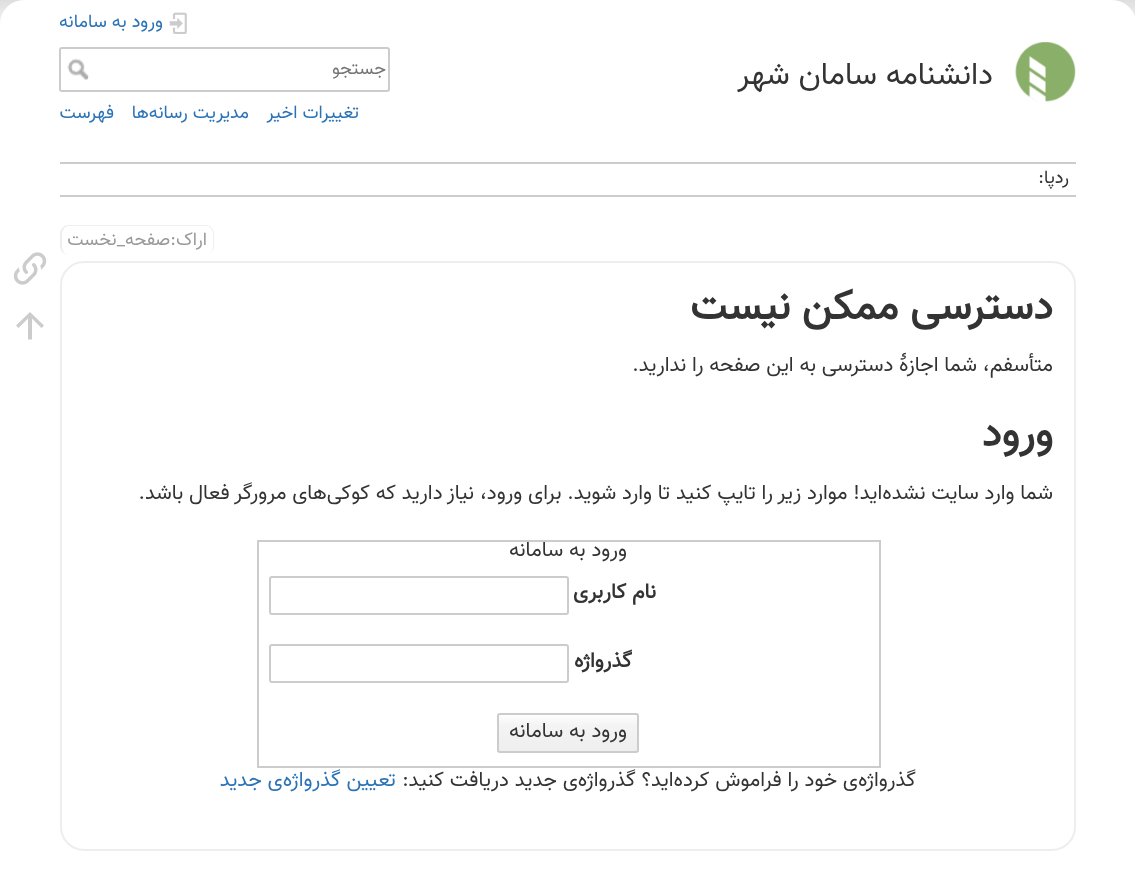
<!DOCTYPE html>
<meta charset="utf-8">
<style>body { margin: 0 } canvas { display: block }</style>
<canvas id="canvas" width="1135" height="875"></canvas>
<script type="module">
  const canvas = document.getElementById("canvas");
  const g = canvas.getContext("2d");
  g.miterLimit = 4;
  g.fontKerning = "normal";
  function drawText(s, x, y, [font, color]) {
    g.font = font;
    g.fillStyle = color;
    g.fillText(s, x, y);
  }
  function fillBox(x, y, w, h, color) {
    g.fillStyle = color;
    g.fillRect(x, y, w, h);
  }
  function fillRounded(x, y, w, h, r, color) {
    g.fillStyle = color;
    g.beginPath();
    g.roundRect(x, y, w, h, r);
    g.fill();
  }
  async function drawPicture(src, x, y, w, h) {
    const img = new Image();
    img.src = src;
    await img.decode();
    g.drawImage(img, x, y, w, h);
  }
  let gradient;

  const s1 = ["31.5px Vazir", "#333333"];
  const s2 = ["18.5px Vazir", "#2B73B7"];
  const s3 = ["18.5px Vazir", "#757575"];
  const s4 = ["18.5px Vazir", "#333333"];
  const s5 = ["18.5px Vazir", "#999999"];
  const s6 = ["bold 42px Vazir", "#333333"];
  const s7 = ["21px Vazir", "#333333"];
  const s8 = ["bold 21px Vazir", "#333333"];
  const s9 = ["21px Vazir", "#2B73B7"];

  fillBox(0, 0, 1135, 875, "#FBFAF9");
  await drawPicture("pic1.png", 0, 0, 1135, 24);
  fillRounded(0, 0, 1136, 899, 24, "#FFFFFF");
  await drawPicture("pic2.png", 1015, 42, 61, 60);
  g.direction = "rtl";
  drawText("دانشنامه سامان شهر", 993, 84, s1);
  await drawPicture("pic3.png", 169, 12, 18, 22);
  drawText("ورود به سامانه", 163, 27, s2);
  g.beginPath();
  g.roundRect(60, 48, 329, 43, 2);
  g.strokeStyle = "#CCCCCC";
  g.lineWidth = 2;
  g.stroke();
  drawText("جستجو", 386, 74, s3);
  await drawPicture("pic4.png", 67, 58, 22, 22);
  drawText("تغییرات اخیر", 359, 118, s2);
  drawText("مدیریت رسانه‌ها", 249, 118, s2);
  drawText("فهرست", 114, 118, s2);
  fillBox(60, 162, 1016, 2, "#CCCCCC");
  fillBox(60, 195, 1016, 2, "#CCCCCC");
  drawText("ردپا:", 1069, 183, s4);
  g.fillStyle = "#EEEEEE";
  g.beginPath();
  g.moveTo(69, 225);
  g.lineTo(206, 225);
  g.bezierCurveTo(210, 225, 214, 229, 214, 234);
  g.lineTo(214, 246);
  g.bezierCurveTo(214, 251, 210, 255, 206, 255);
  g.lineTo(69, 255);
  g.bezierCurveTo(64, 255, 60, 251, 60, 246);
  g.lineTo(60, 234);
  g.bezierCurveTo(60, 229, 64, 225, 69, 225);
  g.closePath();
  g.moveTo(69, 226);
  g.lineTo(206, 226);
  g.bezierCurveTo(210, 226, 213, 230, 213, 234);
  g.lineTo(213, 246);
  g.bezierCurveTo(213, 251, 210, 255, 206, 255);
  g.lineTo(69, 255);
  g.bezierCurveTo(65, 255, 62, 251, 62, 246);
  g.lineTo(62, 234);
  g.bezierCurveTo(62, 230, 65, 226, 69, 226);
  g.closePath();
  g.fill("evenodd");
  drawText("اراک:صفحه_نخست", 207, 245, s5);
  g.beginPath();
  g.roundRect(61, 262, 1014, 588, 23);
  g.strokeStyle = "#EEEEEE";
  g.stroke();
  drawText("دسترسی ممکن نیست", 1053, 319, s6);
  drawText("متأسفم، شما اجازهٔ دسترسی به این صفحه را ندارید.", 1053, 371, s7);
  drawText("ورود", 1053, 446, s6);
  drawText("شما وارد سایت نشده‌اید! موارد زیر را تایپ کنید تا وارد شوید. برای ورود، نیاز دارید که کوکی‌های مرورگر فعال باشد.", 1053, 499, s7);
  g.strokeStyle = "#CCCCCC";
  g.strokeRect(258, 541, 622, 226);
  drawText("ورود به سامانه", 627, 556, s7);
  drawText("نام کاربری", 656, 598, s8);
  g.beginPath();
  g.roundRect(270, 577, 298, 37, 2);
  g.stroke();
  drawText("گذرواژه‌", 632, 667, s8);
  g.beginPath();
  g.roundRect(270, 645, 298, 37, 2);
  g.stroke();
  g.save();
  g.beginPath();
  g.roundRect(497, 713, 142, 40, 3);
  g.clip();
  gradient = g.createLinearGradient(568, 714, 568, 752);
  gradient.addColorStop(0, "#FFFFFF");
  gradient.addColorStop(0.3, "#F4F4F4");
  gradient.addColorStop(0.99, "#EEEEEE");
  gradient.addColorStop(0.99, "#CCCCCC");
  g.fillStyle = gradient;
  g.fillRect(497, 714, 142, 38);
  g.restore();
  g.beginPath();
  g.roundRect(498, 714, 140, 38, 2);
  g.stroke();
  drawText("ورود به سامانه", 627, 737, s7);
  drawText("گذرواژه‌ی خود را فراموش کرده‌اید؟ گذرواژه‌ی جدید دریافت کنید:", 916, 786, s7);
  drawText("تعیین گذرواژه‌ی جدید", 396, 786, s9);
  await drawPicture("pic5.png", 13, 252, 34, 33);
  g.fillStyle = "#CCCCCC";
  g.beginPath();
  g.moveTo(32, 339.5);
  g.lineTo(28, 339.5);
  g.lineTo(28, 318.5);
  g.lineTo(18.5, 328);
  g.lineTo(16, 325.5);
  g.lineTo(30, 312);
  g.lineTo(44, 325.5);
  g.lineTo(41.5, 328);
  g.lineTo(32, 318.5);
  g.closePath();
  g.fill();
</script>
